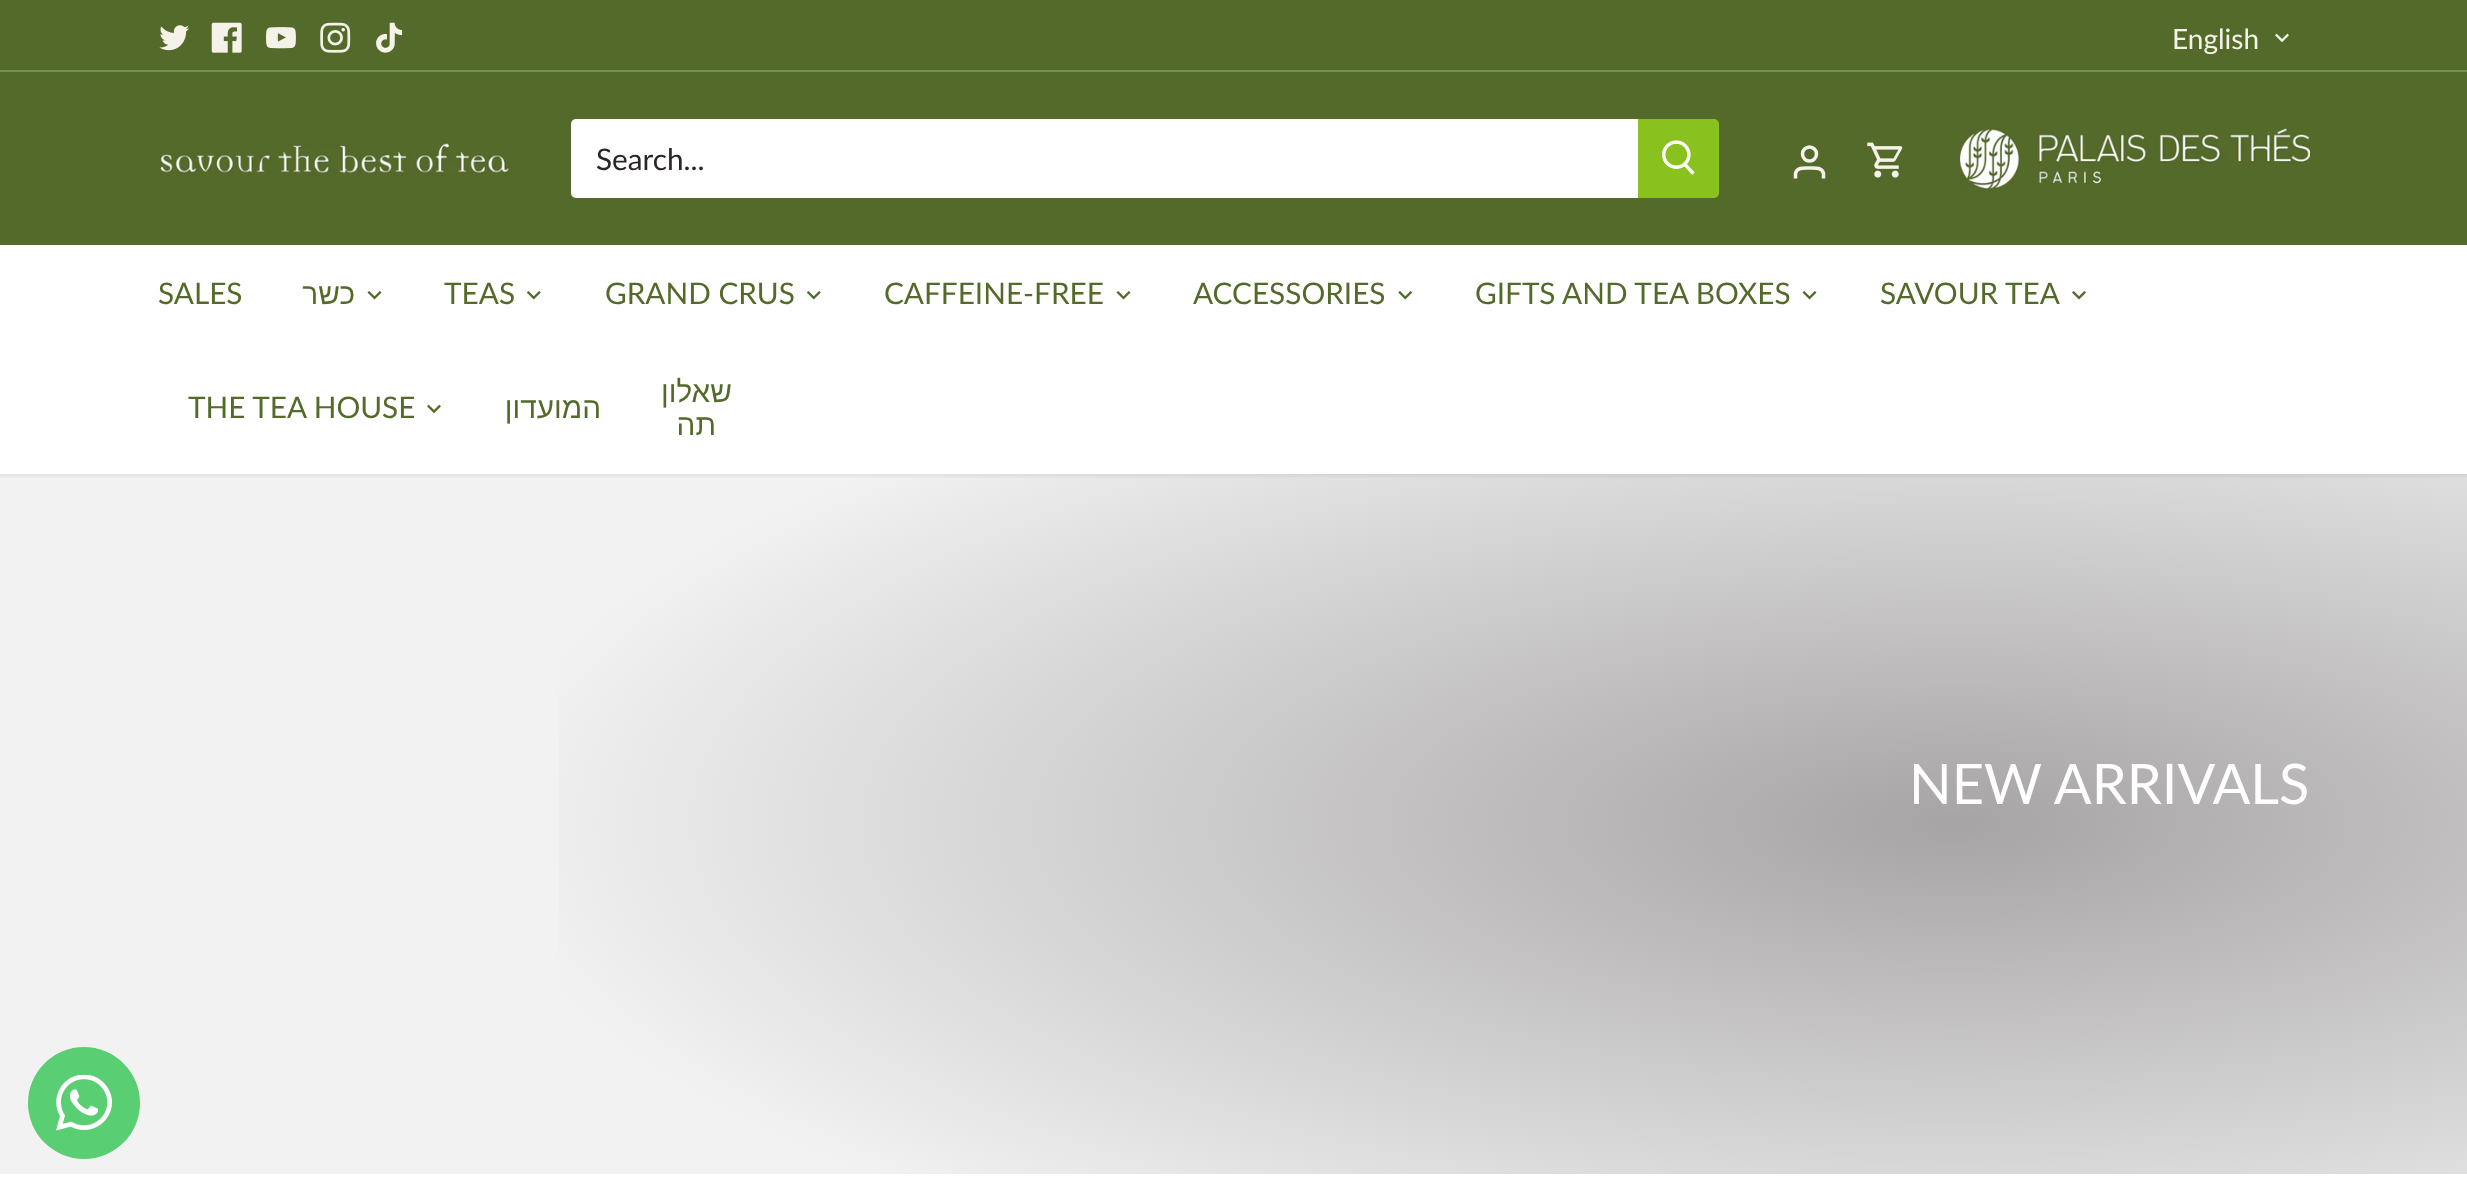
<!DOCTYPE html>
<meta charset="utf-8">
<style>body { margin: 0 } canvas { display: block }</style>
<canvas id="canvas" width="2467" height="1186"></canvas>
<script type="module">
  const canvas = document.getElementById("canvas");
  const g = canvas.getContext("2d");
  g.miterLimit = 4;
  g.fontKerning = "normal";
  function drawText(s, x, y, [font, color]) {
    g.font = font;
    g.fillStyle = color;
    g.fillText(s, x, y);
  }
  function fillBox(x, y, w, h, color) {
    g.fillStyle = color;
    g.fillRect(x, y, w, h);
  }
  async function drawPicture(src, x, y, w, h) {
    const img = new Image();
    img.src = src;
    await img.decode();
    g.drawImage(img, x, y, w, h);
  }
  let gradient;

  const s1 = ["28px Lato", "#F4F2E9"];
  const s2 = ["29.75px Lato", "#2C2528"];
  const s3 = ["29.75px Lato", "#546A2A"];
  const s4 = ["29.75px Liberation Sans", "#546A2A"];
  const s5 = ["56px Lato", "#FFFFFF"];

  fillBox(0, 0, 2467, 1186, "#FFFFFF");
  g.save();
  g.beginPath();
  g.rect(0, 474, 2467, 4);
  g.clip();
  g.fillStyle = "rgba(0, 0, 0, 0.08)";
  g.filter = "blur(2.5px)";
  g.beginPath();
  g.rect(-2, 70, 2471, 406);
  g.fill();
  g.filter = "none";
  g.restore();
  fillBox(0, 0, 2467, 70, "#546A2A");
  fillBox(0, 70, 2467, 2, "#7C8C5A");
  await drawPicture("pic1.png", 159, 25, 30, 26);
  await drawPicture("pic2.png", 211, 22, 31, 31);
  await drawPicture("pic3.png", 266, 27, 30, 22);
  await drawPicture("pic4.png", 320, 22, 31, 31);
  await drawPicture("pic5.png", 376, 22, 27, 31);
  drawText("English", 2172, 49, s1);
  await drawPicture("pic6.png", 2275, 33, 14, 10);
  fillBox(0, 72, 2467, 173, "#546A2A");
  await drawPicture("pic7.png", 159, 142, 351, 35);
  g.fillStyle = "#FFFFFF";
  g.beginPath();
  g.roundRect(571, 119, 1069, 79, [5, 0, 0, 5]);
  g.fill();
  drawText("Search...", 596, 170, s2);
  g.fillStyle = "#89C21E";
  g.beginPath();
  g.roundRect(1638, 119, 81, 79, [0, 5, 5, 0]);
  g.fill();
  await drawPicture("pic8.png", 1662, 140, 33, 35);
  g.beginPath();
  g.arc(1809.5, 154, 7, 0, Math.PI * 2);
  g.strokeStyle = "#F4F2E9";
  g.lineWidth = 3.5;
  g.stroke();
  g.beginPath();
  g.moveTo(1823.5, 178.5);
  g.lineTo(1823.5, 173.5);
  g.bezierCurveTo(1822, 167, 1814.5, 168, 1809.5, 168);
  g.bezierCurveTo(1804.5, 168, 1797, 167, 1795.5, 173.5);
  g.lineTo(1795.5, 178.5);
  g.stroke();
  await drawPicture("pic9.png", 1867, 142, 36, 36);
  await drawPicture("pic10.png", 1960, 127, 350, 63);
  drawText("SALES", 158, 304, s3);
  g.direction = "rtl";
  drawText("כשר", 355, 304, s4);
  await drawPicture("pic11.png", 367, 291, 15, 9);
  g.direction = "ltr";
  drawText("TEAS", 444, 304, s3);
  await drawPicture("pic12.png", 526, 291, 15, 9);
  drawText("GRAND CRUS", 605, 304, s3);
  await drawPicture("pic12.png", 806, 291, 15, 9);
  drawText("CAFFEINE-FREE", 884, 304, s3);
  await drawPicture("pic11.png", 1116, 291, 15, 9);
  drawText("ACCESSORIES", 1193, 304, s3);
  await drawPicture("pic13.png", 1398, 291, 15, 9);
  drawText("GIFTS AND TEA BOXES", 1475, 304, s3);
  await drawPicture("pic11.png", 1802, 291, 15, 9);
  drawText("SAVOUR TEA", 1880, 304, s3);
  await drawPicture("pic14.png", 2072, 291, 14, 9);
  drawText("THE TEA HOUSE", 188, 418, s3);
  await drawPicture("pic15.png", 427, 404, 14, 10);
  g.direction = "rtl";
  drawText("המועדון", 601, 418, s4);
  drawText("שאלון", 732, 402, s4);
  drawText("תה", 716, 435, s4);
  fillBox(0, 474, 2467, 700, "rgba(0, 0, 0, 0.05)");
  gradient = g.createRadialGradient(1956, 2345.11, 0, 1956, 2345.11, 2120);
  gradient.addColorStop(0, "rgba(44, 37, 40, 0.38)");
  gradient.addColorStop(0.7, "rgba(44, 37, 40, 0)");
  g.fillStyle = gradient;
  g.beginPath();
  g.rect(559, 474, 1908, 700);
  g.save();
  g.clip();
  g.scale(1, 744 / 2120);
  g.fillRect(0, 0, 2467, 3380);
  g.restore();
  g.direction = "ltr";
  drawText("NEW ARRIVALS", 1909, 804, s5);
  g.fillStyle = "#59CE72";
  g.beginPath();
  g.arc(84, 1103, 56, 0, Math.PI * 2);
  g.fill();
  await drawPicture("pic16.png", 56, 1075, 56, 56);
</script>
